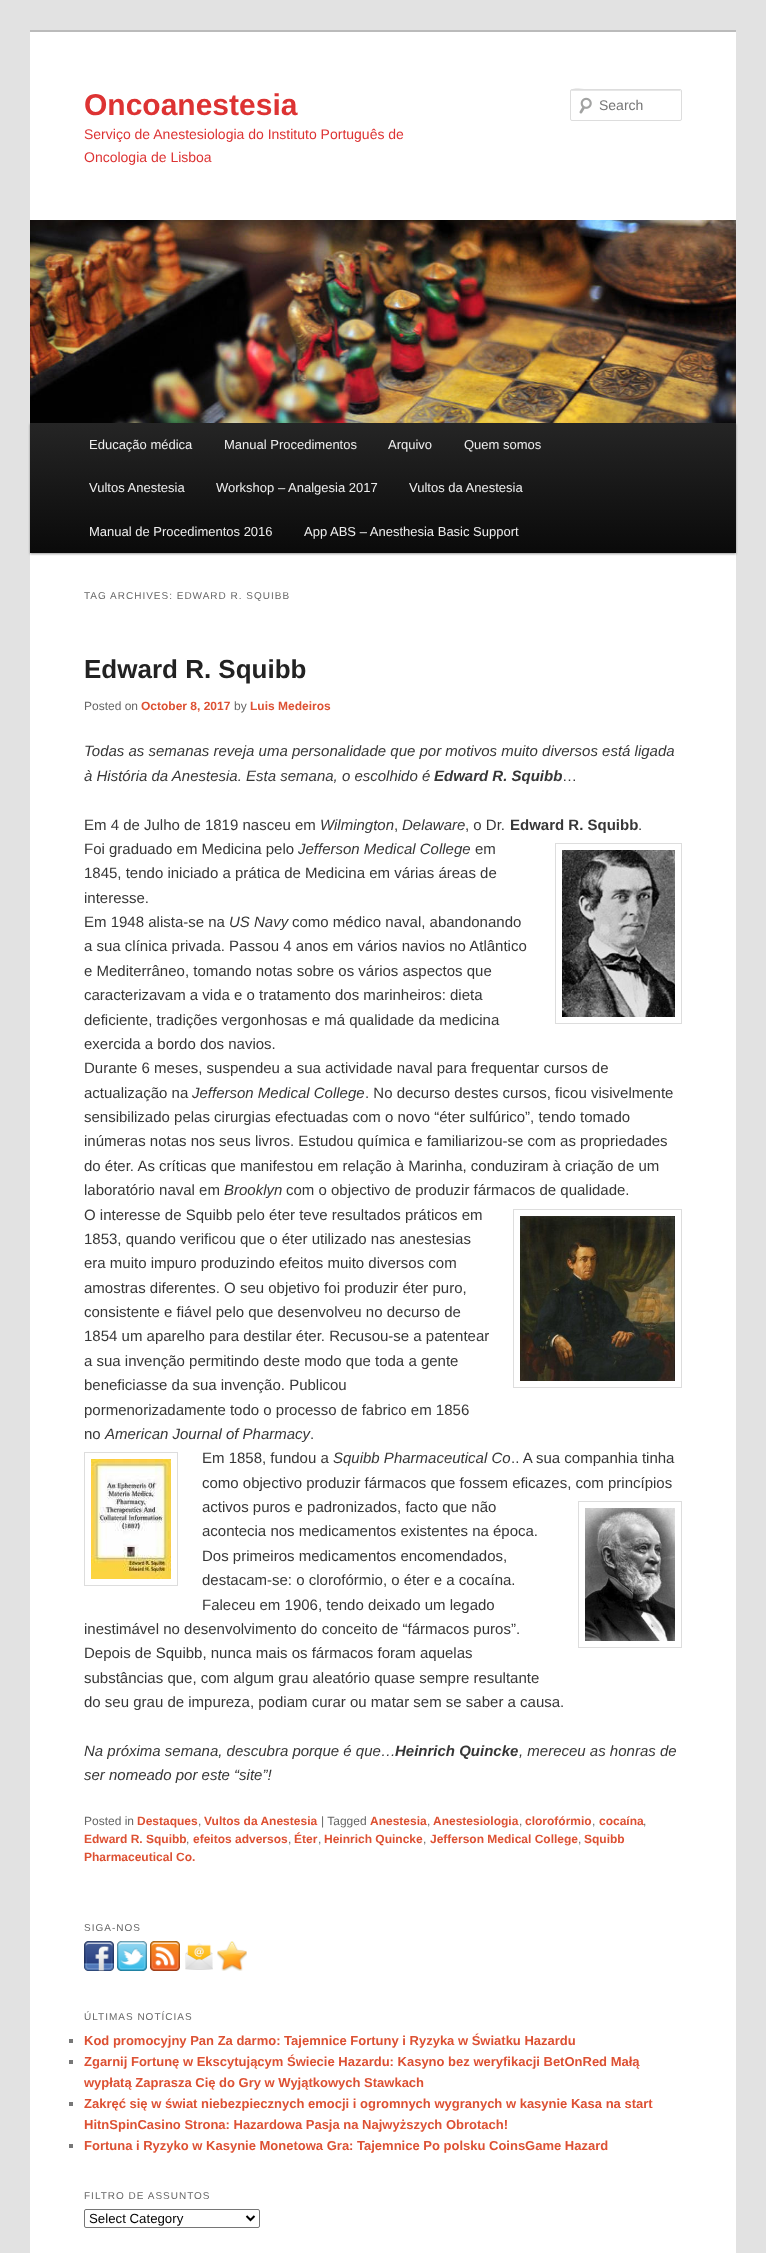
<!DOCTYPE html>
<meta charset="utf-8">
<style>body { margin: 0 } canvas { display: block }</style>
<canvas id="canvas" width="766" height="2253"></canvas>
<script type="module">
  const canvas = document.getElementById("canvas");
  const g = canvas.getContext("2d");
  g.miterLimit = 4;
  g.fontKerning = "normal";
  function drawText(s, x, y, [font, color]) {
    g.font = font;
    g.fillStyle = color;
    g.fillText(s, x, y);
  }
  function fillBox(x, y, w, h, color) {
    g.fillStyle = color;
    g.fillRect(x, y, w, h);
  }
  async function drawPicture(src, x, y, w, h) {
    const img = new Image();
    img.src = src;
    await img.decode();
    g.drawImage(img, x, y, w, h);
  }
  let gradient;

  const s1 = ["bold 30px Liberation Sans", "#DD3333"];
  const s2 = ["14px Liberation Sans", "#DD3333"];
  const s3 = ["14px Liberation Sans", "#757575"];
  const s4 = ["13px Liberation Sans", "#EEEEEE"];
  const s5 = ["10px Liberation Sans", "#666666"];
  const s6 = ["bold 26px Liberation Sans", "#222222"];
  const s7 = ["12px Liberation Sans", "#666666"];
  const s8 = ["bold 12px Liberation Sans", "#DD5133"];
  const s9 = ["italic 15px Liberation Sans", "#373737"];
  const s10 = ["italic bold 15px Liberation Sans", "#373737"];
  const s11 = ["15px Liberation Sans", "#373737"];
  const s12 = ["bold 15px Liberation Sans", "#373737"];
  const s13 = ["bold 13px Liberation Sans", "#DD5133"];
  const s14 = ["13.25px Liberation Sans", "#000000"];

  fillBox(0, 0, 766, 2253, "#E2E2E2");
  fillBox(30, 32, 706, 2221, "#FFFFFF");
  fillBox(30, 30, 706, 2, "#BBBBBB");
  drawText("Oncoanestesia", 84, 115, s1);
  drawText("Serviço de Anestesiologia do Instituto Português de", 84, 139, s2);
  drawText("Oncologia de Lisboa", 84, 162, s2);
  await drawPicture("pic1.png", 579, 97, 13, 17);
  g.fillStyle = "#E6E6E6";
  g.beginPath();
  g.moveTo(572, 91);
  g.lineTo(681, 91);
  g.lineTo(681, 92);
  g.lineTo(680, 90);
  g.lineTo(590, 90);
  g.bezierCurveTo(586, 90, 571, 85, 571, 92);
  g.bezierCurveTo(571, 91, 571, 91, 572, 91);
  g.closePath();
  g.fill();
  g.beginPath();
  g.roundRect(570.5, 89.5, 111, 31, 1.5);
  g.strokeStyle = "#DDDDDD";
  g.stroke();
  drawText("Search", 599, 110, s3);
  g.fillStyle = "rgba(0, 0, 0, 0.4)";
  g.filter = "blur(1px)";
  g.beginPath();
  g.rect(30, 424, 706, 130);
  g.fill();
  g.filter = "none";
  await drawPicture("pic2.png", 30, 220, 706, 203);
  gradient = g.createLinearGradient(383, 423, 383, 553);
  gradient.addColorStop(0, "#252525");
  gradient.addColorStop(1, "#0A0A0A");
  g.fillStyle = gradient;
  g.fillRect(30, 423, 706, 130);
  drawText("Educação médica", 89, 449, s4);
  drawText("Manual Procedimentos", 224, 449, s4);
  drawText("Arquivo", 388, 449, s4);
  drawText("Quem somos", 464, 449, s4);
  drawText("Vultos Anestesia", 89, 492, s4);
  drawText("Workshop – Analgesia 2017", 216, 492, s4);
  drawText("Vultos da Anestesia", 409, 492, s4);
  drawText("Manual de Procedimentos 2016", 89, 536, s4);
  drawText("App ABS – Anesthesia Basic Support", 304, 536, s4);
  g.letterSpacing = "1px";
  drawText("TAG ARCHIVES: EDWARD R. SQUIBB", 84, 599, s5);
  g.letterSpacing = "0px";
  drawText("Edward R. Squibb", 84, 678, s6);
  drawText("Posted on", 84, 710, s7);
  drawText("October 8, 2017", 141, 710, s8);
  drawText("by", 234, 710, s7);
  drawText("Luis Medeiros", 250, 710, s8);
  drawText("Todas as semanas reveja uma personalidade que por motivos muito diversos está ligada", 84, 756, s9);
  drawText("à História da Anestesia. Esta semana, o escolhido é", 84, 781, s9);
  drawText("Edward R. Squibb", 434, 781, s10);
  drawText("…", 562, 781, s11);
  drawText("Em 4 de Julho de 1819 nasceu em", 84, 830, s11);
  drawText("Wilmington", 320, 830, s9);
  drawText(",", 394, 830, s11);
  drawText("Delaware", 402, 830, s9);
  drawText(", o Dr.", 465, 830, s11);
  drawText("Edward R. Squibb", 510, 830, s12);
  drawText(".", 638, 830, s11);
  drawText("Foi graduado em Medicina pelo", 84, 854, s11);
  drawText("Jefferson Medical College", 298, 854, s9);
  drawText("em", 475, 854, s11);
  g.strokeRect(555.5, 843.5, 126, 180);
  await drawPicture("pic3.png", 562, 850, 113, 167);
  drawText("1845, tendo iniciado a prática de Medicina em várias áreas de", 84, 878, s11);
  drawText("interesse.", 84, 903, s11);
  drawText("Em 1948 alista-se na", 84, 927, s11);
  drawText("US Navy", 229, 927, s9);
  drawText("como médico naval, abandonando", 292, 927, s11);
  drawText("a sua clínica privada. Passou 4 anos em vários navios no Atlântico", 84, 951, s11);
  drawText("e Mediterrâneo, tomando notas sobre os vários aspectos que", 84, 976, s11);
  drawText("caracterizavam a vida e o tratamento dos marinheiros: dieta", 84, 1000, s11);
  drawText("deficiente, tradições vergonhosas e má qualidade da medicina", 84, 1025, s11);
  drawText("exercida a bordo dos navios.", 84, 1049, s11);
  drawText("Durante 6 meses, suspendeu a sua actividade naval para frequentar cursos de", 84, 1073, s11);
  drawText("actualização na", 84, 1098, s11);
  drawText("Jefferson Medical College", 192, 1098, s9);
  drawText(". No decurso destes cursos, ficou visivelmente", 365, 1098, s11);
  drawText("sensibilizado pelas cirurgias efectuadas com o novo “éter sulfúrico”, tendo tomado", 84, 1122, s11);
  drawText("inúmeras notas nos seus livros. Estudou química e familiarizou-se com as propriedades", 84, 1146, s11);
  drawText("do éter. As críticas que manifestou em relação à Marinha, conduziram à criação de um", 84, 1171, s11);
  drawText("laboratório naval em", 84, 1195, s11);
  drawText("Brooklyn", 224, 1195, s9);
  drawText("com o objectivo de produzir fármacos de qualidade.", 286, 1195, s11);
  drawText("O interesse de Squibb pelo éter teve resultados práticos em", 84, 1220, s11);
  g.strokeRect(513.5, 1209.5, 168, 178);
  await drawPicture("pic4.png", 520, 1216, 155, 165);
  drawText("1853, quando verificou que o éter utilizado nas anestesias", 84, 1244, s11);
  drawText("era muito impuro produzindo efeitos muito diversos com", 84, 1268, s11);
  drawText("amostras diferentes. O seu objetivo foi produzir éter puro,", 84, 1293, s11);
  drawText("consistente e fiável pelo que desenvolveu no decurso de", 84, 1317, s11);
  drawText("1854 um aparelho para destilar éter. Recusou-se a patentear", 84, 1341, s11);
  drawText("a sua invenção permitindo deste modo que toda a gente", 84, 1366, s11);
  drawText("beneficiasse da sua invenção. Publicou", 84, 1390, s11);
  drawText("pormenorizadamente todo o processo de fabrico em 1856", 84, 1415, s11);
  drawText("no", 84, 1439, s11);
  drawText("American Journal of Pharmacy", 105, 1439, s9);
  drawText(".", 310, 1439, s11);
  g.strokeRect(84.5, 1452.5, 93, 133);
  await drawPicture("pic5.png", 91, 1459, 80, 120);
  drawText("Em 1858, fundou a", 202, 1463, s11);
  drawText("Squibb Pharmaceutical Co", 333, 1463, s9);
  drawText(".. A sua companhia tinha", 511, 1463, s11);
  drawText("como objectivo produzir fármacos que fossem eficazes, com princípios", 202, 1488, s11);
  drawText("activos puros e padronizados, facto que não", 202, 1512, s11);
  g.strokeRect(578.5, 1501.5, 103, 146);
  await drawPicture("pic6.png", 585, 1508, 90, 133);
  drawText("acontecia nos medicamentos existentes na época.", 202, 1536, s11);
  drawText("Dos primeiros medicamentos encomendados,", 202, 1561, s11);
  drawText("destacam-se: o clorofórmio, o éter e a cocaína.", 202, 1585, s11);
  drawText("Faleceu em 1906, tendo deixado um legado", 202, 1610, s11);
  drawText("inestimável no desenvolvimento do conceito de “fármacos puros”.", 84, 1634, s11);
  drawText("Depois de Squibb, nunca mais os fármacos foram aquelas", 84, 1658, s11);
  drawText("substâncias que, com algum grau aleatório quase sempre resultante", 84, 1683, s11);
  drawText("do seu grau de impureza, podiam curar ou matar sem se saber a causa.", 84, 1707, s11);
  drawText("Na próxima semana, descubra porque é que…", 84, 1756, s9);
  drawText("Heinrich Quincke", 395, 1756, s10);
  drawText(", mereceu as honras de", 519, 1756, s9);
  drawText("ser nomeado por este “site”!", 84, 1780, s9);
  drawText("Posted in", 84, 1825, s7);
  drawText("Destaques", 137, 1825, s8);
  drawText(",", 198, 1825, s7);
  drawText("Vultos da Anestesia", 204, 1825, s8);
  drawText("| Tagged", 321, 1825, s7);
  drawText("Anestesia", 370, 1825, s8);
  drawText(",", 427, 1825, s7);
  drawText("Anestesiologia", 433, 1825, s8);
  drawText(",", 519, 1825, s7);
  drawText("clorofórmio", 525, 1825, s8);
  drawText(",", 592, 1825, s7);
  drawText("cocaína", 599, 1825, s8);
  drawText(",", 643, 1825, s7);
  drawText("Edward R. Squibb", 84, 1843, s8);
  drawText(",", 186, 1843, s7);
  drawText("efeitos adversos", 193, 1843, s8);
  drawText(",", 288, 1843, s7);
  drawText("Éter", 294, 1843, s8);
  drawText(",", 318, 1843, s7);
  drawText("Heinrich Quincke", 324, 1843, s8);
  drawText(",", 423, 1843, s7);
  drawText("Jefferson Medical College", 430, 1843, s8);
  drawText(",", 578, 1843, s7);
  drawText("Squibb", 584, 1843, s8);
  drawText("Pharmaceutical Co.", 84, 1861, s8);
  g.letterSpacing = "1px";
  drawText("SIGA-NOS", 84, 1931, s5);
  await drawPicture("pic7.png", 84, 1941, 30, 30);
  await drawPicture("pic8.png", 117, 1941, 30, 30);
  await drawPicture("pic9.png", 150, 1941, 30, 30);
  await drawPicture("pic10.png", 185, 1943, 28, 27);
  await drawPicture("pic11.png", 217, 1941, 30, 30);
  drawText("ÚLTIMAS NOTÍCIAS", 84, 2020, s5);
  fillBox(69, 2039, 4, 4, "#777777");
  g.letterSpacing = "0px";
  drawText("Kod promocyjny Pan Za darmo: Tajemnice Fortuny i Ryzyka w Światku Hazardu", 84, 2045, s13);
  fillBox(69, 2060, 4, 4, "#777777");
  drawText("Zgarnij Fortunę w Ekscytującym Świecie Hazardu: Kasyno bez weryfikacji BetOnRed Małą", 84, 2066, s13);
  drawText("wypłatą Zaprasza Cię do Gry w Wyjątkowych Stawkach", 84, 2087, s13);
  fillBox(69, 2102, 4, 4, "#777777");
  drawText("Zakręć się w świat niebezpiecznych emocji i ogromnych wygranych w kasynie Kasa na start", 84, 2108, s13);
  drawText("HitnSpinCasino Strona: Hazardowa Pasja na Najwyższych Obrotach!", 84, 2129, s13);
  fillBox(69, 2144, 4, 4, "#777777");
  drawText("Fortuna i Ryzyko w Kasynie Monetowa Gra: Tajemnice Po polsku CoinsGame Hazard", 84, 2150, s13);
  g.letterSpacing = "1px";
  drawText("FILTRO DE ASSUNTOS", 84, 2199, s5);
  g.beginPath();
  g.roundRect(84.5, 2209.5, 175, 18, 1.5);
  g.strokeStyle = "#767676";
  g.stroke();
  g.beginPath();
  g.moveTo(246.5, 2216);
  g.lineTo(250.5, 2220);
  g.lineTo(254.5, 2216);
  g.strokeStyle = "#000000";
  g.lineWidth = 2;
  g.stroke();
  g.letterSpacing = "0px";
  drawText("Select Category", 89, 2223, s14);
</script>
